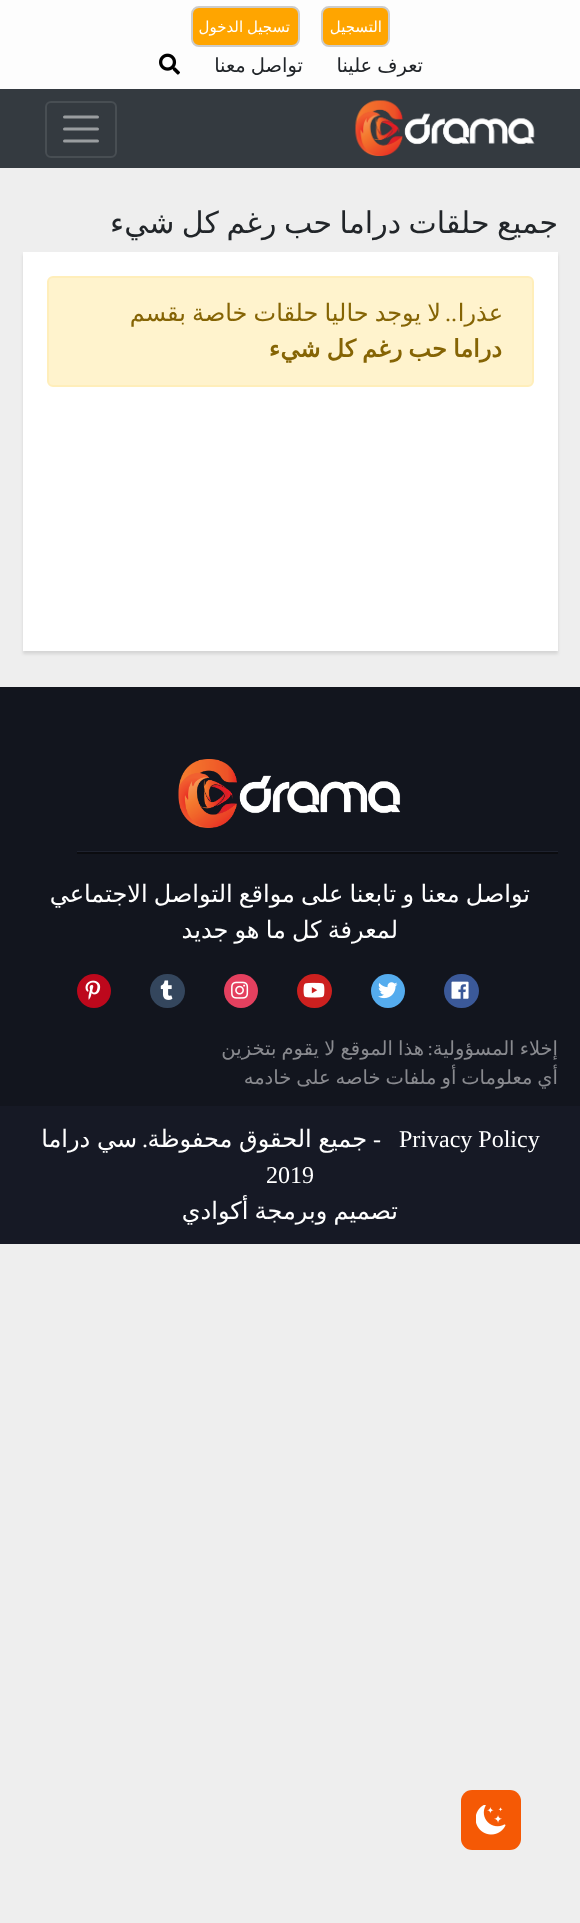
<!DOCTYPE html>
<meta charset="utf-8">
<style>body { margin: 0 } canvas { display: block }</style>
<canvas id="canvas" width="580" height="1923"></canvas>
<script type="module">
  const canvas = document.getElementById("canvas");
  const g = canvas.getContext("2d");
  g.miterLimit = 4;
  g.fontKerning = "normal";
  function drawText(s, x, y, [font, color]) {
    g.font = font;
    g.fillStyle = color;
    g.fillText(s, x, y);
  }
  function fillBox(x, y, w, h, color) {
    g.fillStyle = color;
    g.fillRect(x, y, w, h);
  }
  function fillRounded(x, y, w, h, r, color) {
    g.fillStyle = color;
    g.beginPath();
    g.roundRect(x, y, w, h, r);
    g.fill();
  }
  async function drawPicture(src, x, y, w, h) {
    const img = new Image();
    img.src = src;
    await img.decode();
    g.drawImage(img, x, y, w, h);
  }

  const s1 = ["15px DejaVu Sans", "#FFFFFF"];
  const s2 = ["19.5px DejaVu Sans", "#212529"];
  const s3 = ["30px DejaVu Sans", "#212529"];
  const s4 = ["24px DejaVu Sans", "#856404"];
  const s5 = ["24px Liberation Serif", "#856404"];
  const s6 = ["bold 24px DejaVu Sans", "#856404"];
  const s7 = ["24px DejaVu Sans", "#FFFFFF"];
  const s8 = ["19.5px DejaVu Sans", "#898A8F"];
  const s9 = ["19.5px Liberation Serif", "#898A8F"];
  const s10 = ["24px Liberation Serif", "#FFFFFF"];

  fillBox(0, 0, 580, 1923, "#EEEEEE");
  fillBox(0, 0, 580, 89, "#FDFDFD");
  g.fillStyle = "#FFA500";
  g.beginPath();
  g.roundRect(322, 7, 67, 39, 7);
  g.fill();
  g.strokeStyle = "#CCCCCC";
  g.lineWidth = 2;
  g.stroke();
  g.direction = "rtl";
  drawText("التسجيل", 382, 32, s1);
  g.fillStyle = "#FFA500";
  g.beginPath();
  g.roundRect(192, 7, 107, 39, 7);
  g.fill();
  g.stroke();
  g.wordSpacing = "-1px";
  drawText("تسجيل الدخول", 290, 32, s1);
  g.wordSpacing = "-1.25px";
  drawText("تعرف علينا", 423, 72, s2);
  drawText("تواصل معنا", 303, 72, s2);
  await drawPicture("pic1.png", 159, 53, 21, 22);
  fillBox(0, 89, 580, 79, "#343A40");
  await drawPicture("pic2.png", 355, 100, 180, 56);
  g.beginPath();
  g.roundRect(46, 102, 70, 55, 5);
  g.strokeStyle = "#484E53";
  g.stroke();
  g.beginPath();
  g.moveTo(64.5, 117);
  g.lineTo(97.5, 117);
  g.moveTo(64.5, 129);
  g.lineTo(97.5, 129);
  g.moveTo(64.5, 141);
  g.lineTo(97.5, 141);
  g.strokeStyle = "#9A9DA0";
  g.lineWidth = 3;
  g.lineCap = "round";
  g.stroke();
  g.wordSpacing = "-2px";
  drawText("جميع حلقات دراما حب رغم كل شيء", 558, 233, s3);
  g.fillStyle = "rgba(0, 0, 0, 0.1)";
  g.filter = "blur(1.5px)";
  g.beginPath();
  g.rect(23, 255, 535, 399);
  g.fill();
  g.filter = "none";
  fillBox(23, 252, 535, 399, "#FFFFFF");
  g.fillStyle = "#FFF3CD";
  g.beginPath();
  g.roundRect(48, 277, 485, 109, 5);
  g.fill();
  g.strokeStyle = "#FFEEBA";
  g.lineWidth = 2;
  g.stroke();
  g.wordSpacing = "0px";
  drawText("عذرا", 503, 321, s4);
  drawText("..", 457, 321, s5);
  g.wordSpacing = "-1.5px";
  drawText("لا يوجد حاليا حلقات خاصة بقسم", 441, 321, s4);
  drawText("دراما حب رغم كل شيء", 502, 357, s6);
  fillBox(0, 687, 580, 419, "#12151E");
  await drawPicture("pic3.png", 178, 759, 223, 69);
  fillBox(77, 851, 481, 1, "#1E222F");
  fillBox(77, 852, 481, 2, "#0B0C10");
  drawText("تواصل معنا", 530, 902, s7);
  drawText("و تابعنا على مواقع التواصل الاجتماعي", 414, 902, s7);
  drawText("لمعرفة كل ما هو جديد", 398, 938, s7);
  fillRounded(444, 974, 35, 34, 17, "#3B5999");
  await drawPicture("pic4.png", 451, 981, 18, 18);
  g.fillStyle = "#55ACEE";
  g.beginPath();
  g.arc(388, 991, 17, 0, Math.PI * 2);
  g.fill();
  await drawPicture("pic5.png", 378, 982, 20, 17);
  fillRounded(297, 974, 35, 34, 17, "#CD201F");
  await drawPicture("pic6.png", 303, 982, 22, 16);
  g.fillStyle = "#E4405F";
  g.beginPath();
  g.arc(241, 991, 17, 0, Math.PI * 2);
  g.fill();
  await drawPicture("pic7.png", 231, 981, 18, 18);
  fillRounded(150, 974, 35, 34, 17, "#34465D");
  await drawPicture("pic8.png", 160, 980, 13, 20);
  g.fillStyle = "#BD081C";
  g.beginPath();
  g.arc(94, 991, 17, 0, Math.PI * 2);
  g.fill();
  await drawPicture("pic9.png", 85, 980, 16, 20);
  g.wordSpacing = "-1px";
  drawText("إخلاء المسؤولية", 558, 1055, s8);
  g.wordSpacing = "0px";
  drawText(":", 433, 1055, s9);
  g.wordSpacing = "-1px";
  drawText("هذا الموقع لا يقوم بتخزين", 424, 1055, s8);
  g.wordSpacing = "-1.25px";
  drawText("أي معلومات أو ملفات خاصه على خادمه", 558, 1084, s8);
  fillBox(0, 1106, 580, 138, "#161925");
  g.wordSpacing = "0px";
  g.direction = "ltr";
  drawText("Privacy Policy", 399, 1147, s10);
  drawText("-", 373, 1147, s10);
  g.wordSpacing = "-1px";
  g.direction = "rtl";
  drawText("جميع الحقوق محفوظة", 367, 1147, s7);
  drawText("سي دراما", 137, 1147, s7);
  g.wordSpacing = "0px";
  drawText(".", 148, 1147, s10);
  g.direction = "ltr";
  drawText("2019", 266, 1183, s10);
  g.wordSpacing = "-1.5px";
  g.direction = "rtl";
  drawText("تصميم وبرمجة أكوادي", 398, 1219, s7);
  fillRounded(461, 1790, 60, 60, 11, "#F55905");
  await drawPicture("pic10.png", 476, 1805, 30, 30);
</script>
